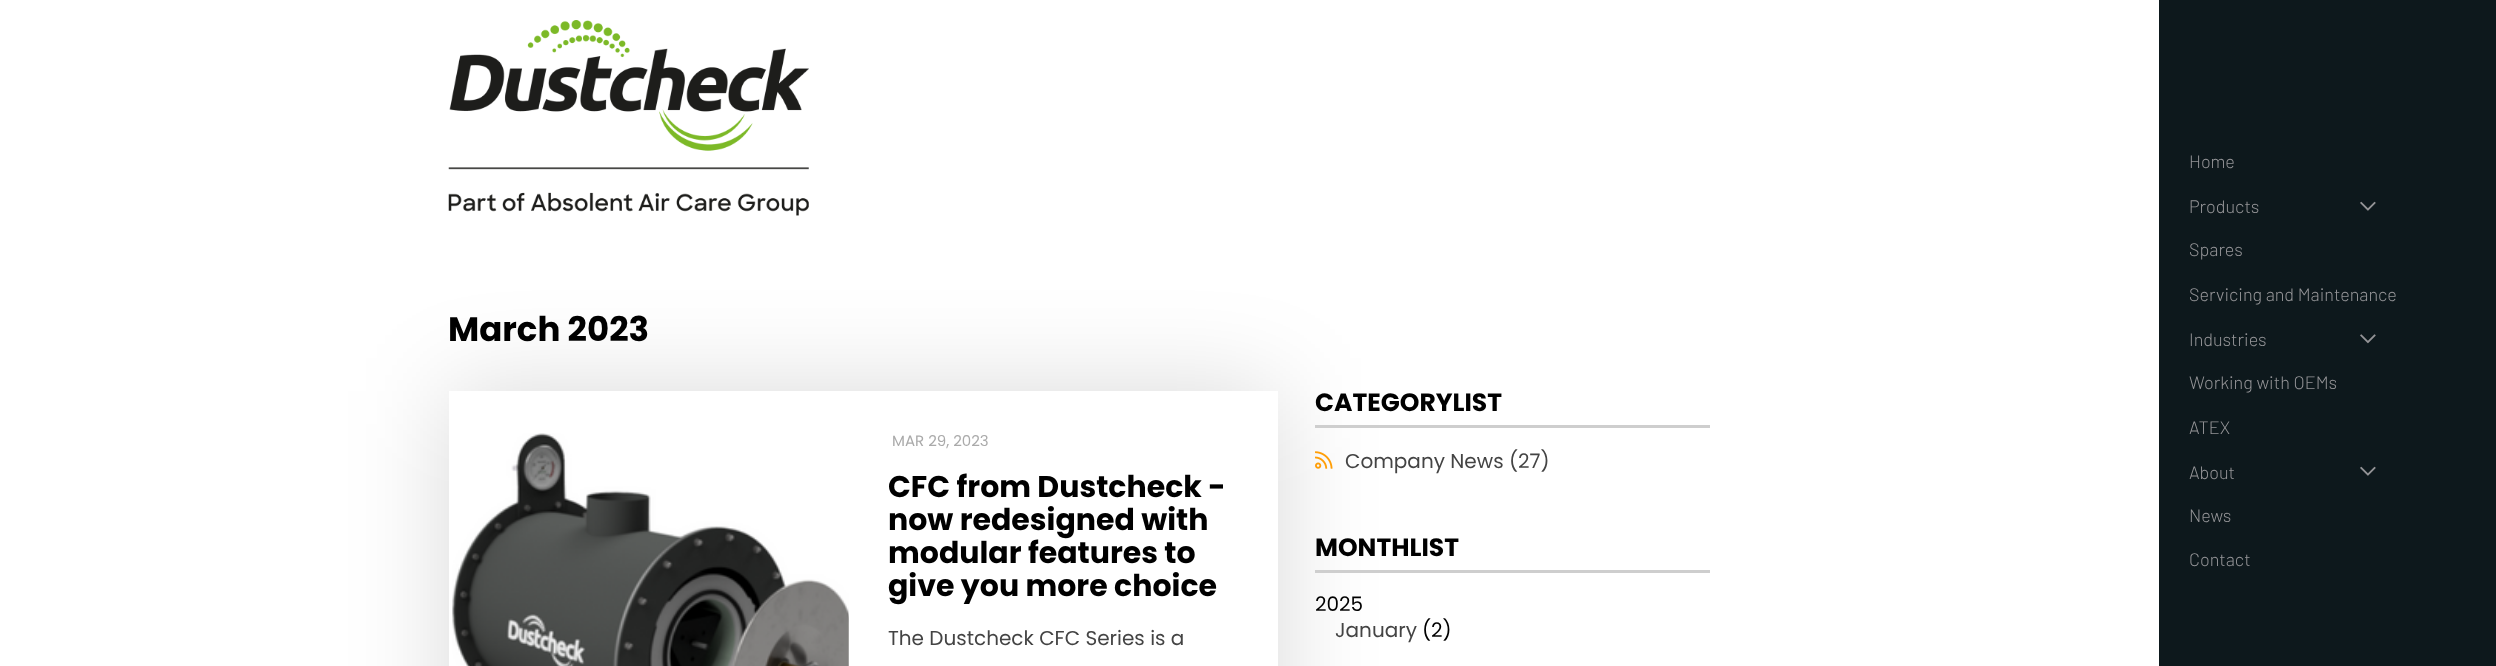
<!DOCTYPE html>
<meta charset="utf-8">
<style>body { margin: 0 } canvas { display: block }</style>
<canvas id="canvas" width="2496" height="666"></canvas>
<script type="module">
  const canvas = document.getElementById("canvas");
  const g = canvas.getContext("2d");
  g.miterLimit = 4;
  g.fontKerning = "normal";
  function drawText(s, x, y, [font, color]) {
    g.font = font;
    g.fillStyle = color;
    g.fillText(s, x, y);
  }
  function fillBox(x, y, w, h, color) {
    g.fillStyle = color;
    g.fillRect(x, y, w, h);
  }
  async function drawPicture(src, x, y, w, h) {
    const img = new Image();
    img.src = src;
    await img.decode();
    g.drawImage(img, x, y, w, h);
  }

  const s1 = ["bold 34px Poppins", "#000000"];
  const s2 = ["15px Poppins", "#AAAAAA"];
  const s3 = ["bold 30px Poppins", "#000000"];
  const s4 = ["20px Poppins", "#444444"];
  const s5 = ["bold 25px Poppins", "#000000"];
  const s6 = ["20px Poppins", "#000000"];
  const s7 = ["300 18px Barlow", "#949497"];

  fillBox(0, 0, 2496, 666, "#0D181C");
  fillBox(0, 0, 2159, 666, "#FFFFFF");
  await drawPicture("pic1.png", 448, 20, 361, 196);
  drawText("March 2023", 448, 341, s1);
  g.save();
  g.beginPath();
  g.moveTo(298, 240);
  g.lineTo(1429, 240);
  g.lineTo(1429, 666);
  g.lineTo(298, 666);
  g.closePath();
  g.moveTo(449, 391);
  g.lineTo(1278, 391);
  g.lineTo(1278, 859);
  g.lineTo(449, 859);
  g.closePath();
  g.clip("evenodd");
  g.fillStyle = "rgba(0, 0, 0, 0.15)";
  g.filter = "blur(50px)";
  g.beginPath();
  g.rect(449, 391, 829, 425);
  g.fill();
  g.filter = "none";
  g.restore();
  fillBox(849, 391, 429, 275, "#FFFFFF");
  await drawPicture("pic2.png", 452, 433, 397, 233);
  drawText("MAR 29, 2023", 892, 446, s2);
  drawText("CFC from Dustcheck -", 888, 497, s3);
  drawText("now redesigned with", 888, 530, s3);
  drawText("modular features to", 888, 563, s3);
  drawText("give you more choice", 888, 596, s3);
  drawText("The Dustcheck CFC Series is a", 888, 645, s4);
  fillBox(1315, 425, 395, 3, "#CECECE");
  drawText("CATEGORYLIST", 1315, 411, s5);
  await drawPicture("pic3.png", 1315, 451, 18, 18);
  drawText("Company News (27)", 1345, 468, s4);
  fillBox(1315, 570, 395, 3, "#CECECE");
  drawText("MONTHLIST", 1315, 556, s5);
  drawText("2025", 1315, 611, s6);
  drawText("January", 1335, 637, s4);
  drawText("(2)", 1422, 637, s6);
  drawText("Home", 2189, 168, s7);
  drawText("Products", 2189, 213, s7);
  await drawPicture("pic4.png", 2360, 201, 16, 10);
  drawText("Spares", 2189, 256, s7);
  drawText("Servicing and Maintenance", 2189, 301, s7);
  drawText("Industries", 2189, 346, s7);
  await drawPicture("pic5.png", 2360, 334, 16, 10);
  drawText("Working with OEMs", 2189, 389, s7);
  drawText("ATEX", 2189, 434, s7);
  drawText("About", 2189, 479, s7);
  await drawPicture("pic4.png", 2360, 466, 16, 10);
  drawText("News", 2189, 522, s7);
  drawText("Contact", 2189, 566, s7);
</script>
